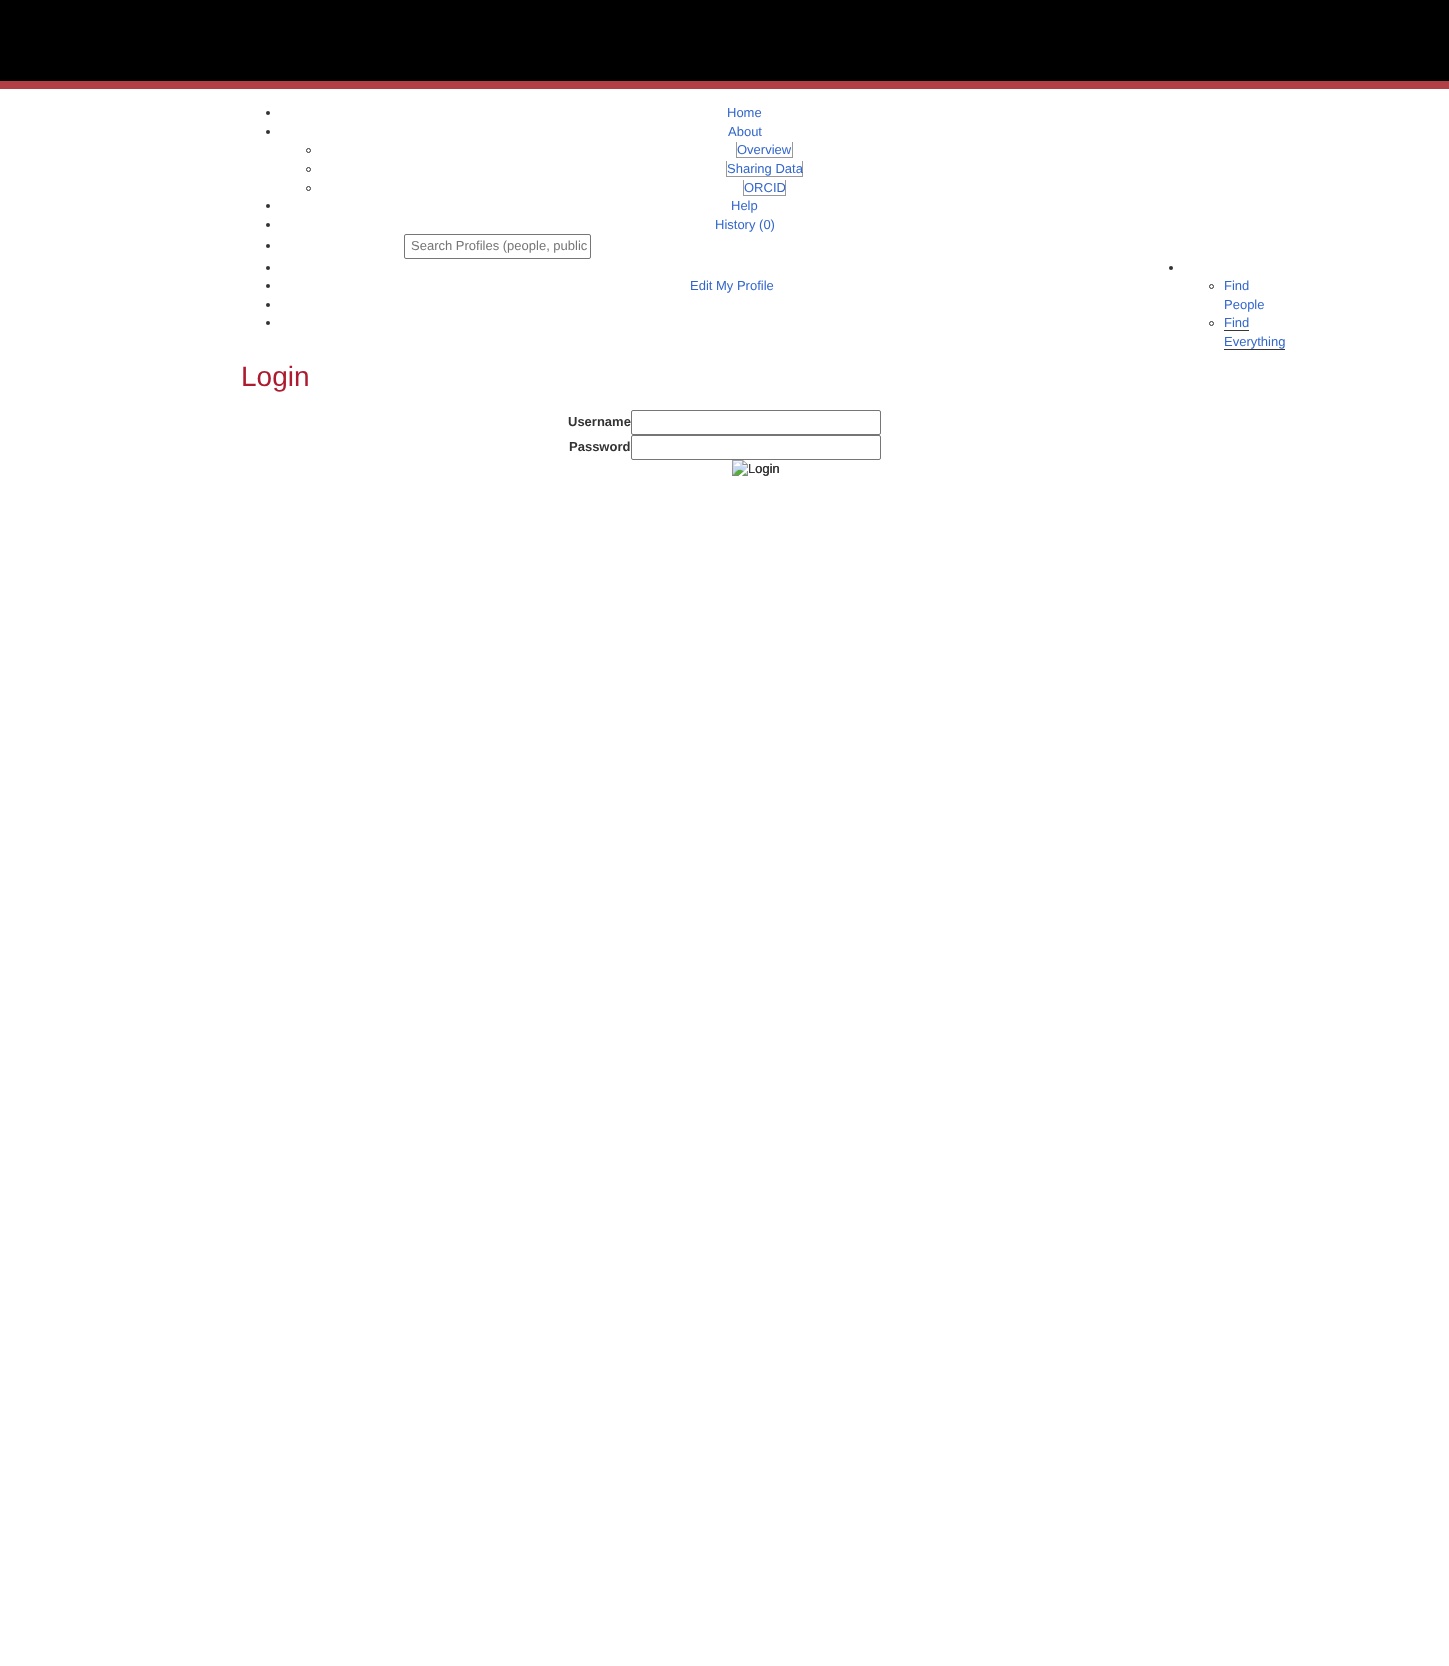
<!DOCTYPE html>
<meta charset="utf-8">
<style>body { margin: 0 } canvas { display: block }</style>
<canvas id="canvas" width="1449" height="1666"></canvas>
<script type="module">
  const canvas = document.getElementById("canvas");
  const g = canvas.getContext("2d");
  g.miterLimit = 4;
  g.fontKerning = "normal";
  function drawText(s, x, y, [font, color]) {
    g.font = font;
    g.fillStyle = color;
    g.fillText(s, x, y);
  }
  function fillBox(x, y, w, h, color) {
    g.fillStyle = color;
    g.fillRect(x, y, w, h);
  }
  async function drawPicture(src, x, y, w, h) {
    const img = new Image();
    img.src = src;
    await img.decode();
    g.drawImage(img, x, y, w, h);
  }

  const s1 = ["13px Liberation Sans", "#3366CC"];
  const s2 = ["13px Liberation Sans", "#757575"];
  const s3 = ["28px Liberation Sans", "#AC1B30"];
  const s4 = ["bold 13px Liberation Sans", "#333333"];
  const s5 = ["13px Liberation Sans", "#333333"];

  fillBox(0, 0, 1449, 1666, "#FFFFFF");
  fillBox(0, 0, 1449, 81, "#000000");
  fillBox(0, 81, 1449, 8, "#B23F45");
  g.fillStyle = "#333333";
  g.beginPath();
  g.arc(268, 113, 2, 0, Math.PI * 2);
  g.fill();
  drawText("Home", 727, 117, s1);
  g.fillStyle = "#333333";
  g.beginPath();
  g.arc(268, 132, 2, 0, Math.PI * 2);
  g.fill();
  drawText("About", 728, 136, s1);
  g.beginPath();
  g.arc(308.5, 150.5, 2, 0, Math.PI * 2);
  g.strokeStyle = "#333333";
  g.stroke();
  drawText("Overview", 737, 154, s1);
  fillBox(792, 142, 1, 16, "#999999");
  fillBox(736, 157, 57, 1, "#999999");
  fillBox(736, 142, 1, 16, "#999999");
  g.beginPath();
  g.arc(308.5, 169.5, 2, 0, Math.PI * 2);
  g.stroke();
  fillBox(802, 161, 1, 16, "#999999");
  drawText("Sharing Data", 727, 173, s1);
  fillBox(726, 176, 77, 1, "#999999");
  fillBox(726, 161, 1, 16, "#999999");
  g.beginPath();
  g.arc(308.5, 188.5, 2, 0, Math.PI * 2);
  g.stroke();
  drawText("ORCID", 744, 192, s1);
  fillBox(785, 180, 1, 16, "#999999");
  fillBox(743, 195, 43, 1, "#999999");
  fillBox(743, 180, 1, 16, "#999999");
  g.fillStyle = "#333333";
  g.beginPath();
  g.arc(268, 206, 2, 0, Math.PI * 2);
  g.fill();
  drawText("Help", 731, 210, s1);
  g.fillStyle = "#333333";
  g.beginPath();
  g.arc(268, 225, 2, 0, Math.PI * 2);
  g.fill();
  drawText("History (0)", 715, 229, s1);
  g.fillStyle = "#333333";
  g.beginPath();
  g.arc(268, 246, 2, 0, Math.PI * 2);
  g.fill();
  g.beginPath();
  g.roundRect(404.5, 234.5, 186, 24, 1.5);
  g.strokeStyle = "#767676";
  g.stroke();
  drawText("Search Profiles (people, public", 411, 250, s2);
  g.fillStyle = "#333333";
  g.beginPath();
  g.arc(1171, 268, 2, 0, Math.PI * 2);
  g.fill();
  g.beginPath();
  g.arc(1211.5, 286.5, 2, 0, Math.PI * 2);
  g.strokeStyle = "#333333";
  g.stroke();
  drawText("Find", 1224, 290, s1);
  drawText("People", 1224, 309, s1);
  g.beginPath();
  g.arc(1211.5, 323.5, 2, 0, Math.PI * 2);
  g.stroke();
  drawText("Find", 1224, 327, s1);
  fillBox(1224, 330, 25, 1, "#383737");
  drawText("Everything", 1224, 346, s1);
  fillBox(1224, 349, 61, 1, "#383737");
  g.fillStyle = "#333333";
  g.beginPath();
  g.arc(268, 268, 2, 0, Math.PI * 2);
  g.fill();
  g.beginPath();
  g.arc(268, 286, 2, 0, Math.PI * 2);
  g.fill();
  drawText("Edit My Profile", 690, 290, s1);
  g.fillStyle = "#333333";
  g.beginPath();
  g.arc(268, 305, 2, 0, Math.PI * 2);
  g.fill();
  g.beginPath();
  g.arc(268, 323, 2, 0, Math.PI * 2);
  g.fill();
  drawText("Login", 241, 386, s3);
  drawText("Username", 568, 426, s4);
  g.beginPath();
  g.roundRect(631.5, 410.5, 249, 24, 1.5);
  g.strokeStyle = "#767676";
  g.stroke();
  drawText("Password", 569, 451, s4);
  g.beginPath();
  g.roundRect(631.5, 435.5, 249, 24, 1.5);
  g.stroke();
  await drawPicture("pic1.png", 732, 460, 47, 16);
  drawText("ogin", 755, 473, s5);
</script>
